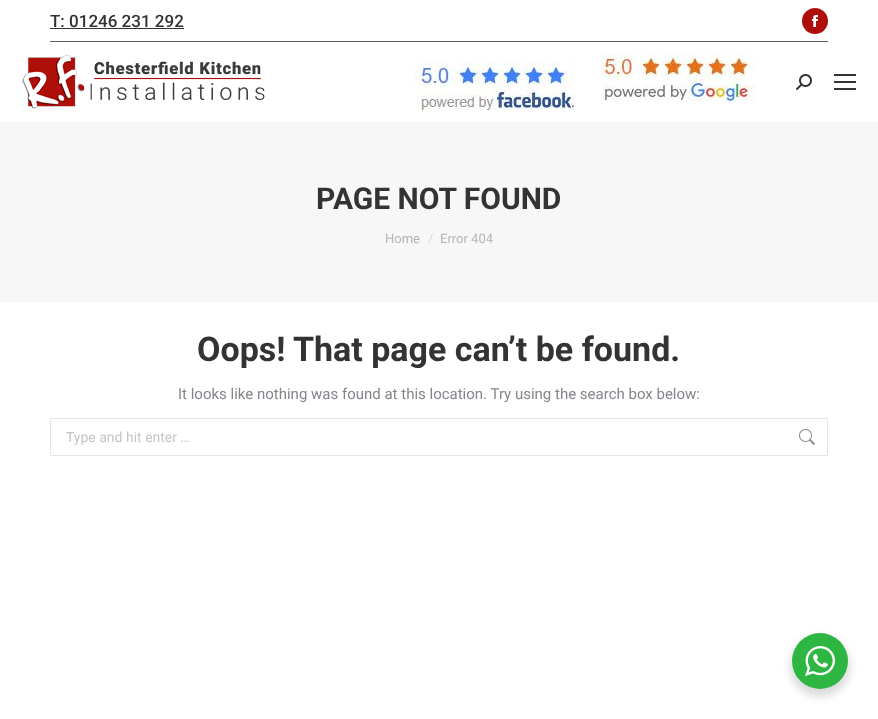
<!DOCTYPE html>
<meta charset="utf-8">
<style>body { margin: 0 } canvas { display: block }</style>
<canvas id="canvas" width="878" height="719"></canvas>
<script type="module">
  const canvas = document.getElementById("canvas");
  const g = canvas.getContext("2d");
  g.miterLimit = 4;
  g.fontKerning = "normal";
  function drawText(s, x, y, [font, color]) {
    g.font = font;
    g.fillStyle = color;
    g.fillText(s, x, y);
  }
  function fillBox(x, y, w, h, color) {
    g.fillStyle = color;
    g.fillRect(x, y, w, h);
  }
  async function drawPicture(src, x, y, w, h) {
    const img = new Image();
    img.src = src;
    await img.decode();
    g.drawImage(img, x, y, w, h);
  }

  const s1 = ["500 17px Roboto", "#333333"];
  const s2 = ["bold 30px Roboto", "#333333"];
  const s3 = ["13px Roboto", "#B4B5BB"];
  const s4 = ["13px Roboto", "#D6D6D9"];
  const s5 = ["bold 34px Roboto", "#333333"];
  const s6 = ["15px Roboto", "#85868C"];
  const s7 = ["14px Roboto", "#C4C5C9"];

  fillBox(0, 0, 878, 719, "#FFFFFF");
  drawText("T: 01246 231 292", 50, 27, s1);
  fillBox(50, 28, 134, 1, "#333333");
  g.fillStyle = "#AE0F0A";
  g.beginPath();
  g.arc(815, 21, 13, 0, Math.PI * 2);
  g.fill();
  await drawPicture("pic1.png", 812, 15, 6, 12);
  fillBox(50, 41, 778, 1, "#606060");
  await drawPicture("pic2.png", 22, 54, 243, 55);
  await drawPicture("pic3.png", 415, 62, 160, 49);
  await drawPicture("pic4.png", 601, 53, 156, 49);
  await drawPicture("pic5.png", 796, 74, 16, 16);
  fillBox(834, 74, 22, 2, "#333333");
  fillBox(834, 81, 22, 2, "#333333");
  fillBox(834, 88, 22, 2, "#333333");
  fillBox(0, 122, 878, 180, "#F7F7F7");
  drawText("PAGE NOT FOUND", 316, 209, s2);
  drawText("Home", 385, 243, s3);
  drawText("/", 428, 243, s4);
  drawText("Error 404", 440, 243, s3);
  drawText("Oops! That page can’t be found.", 197, 361, s5);
  drawText("It looks like nothing was found at this location. Try using the search box below:", 178, 399, s6);
  g.beginPath();
  g.roundRect(50.5, 418.5, 777, 37, 0.5);
  g.strokeStyle = "#E5E5E5";
  g.stroke();
  drawText("Type and hit enter …", 66, 442, s7);
  await drawPicture("pic6.png", 799, 429, 16, 16);
  g.fillStyle = "rgba(0, 0, 0, 0.14)";
  g.filter = "blur(4px)";
  g.beginPath();
  g.roundRect(790, 637, 60, 60, 30);
  g.fill();
  g.filter = "none";
  g.fillStyle = "#2DB742";
  g.beginPath();
  g.arc(820, 661, 28, 0, Math.PI * 2);
  g.fill();
  await drawPicture("pic7.png", 805, 646, 30, 30);
</script>
